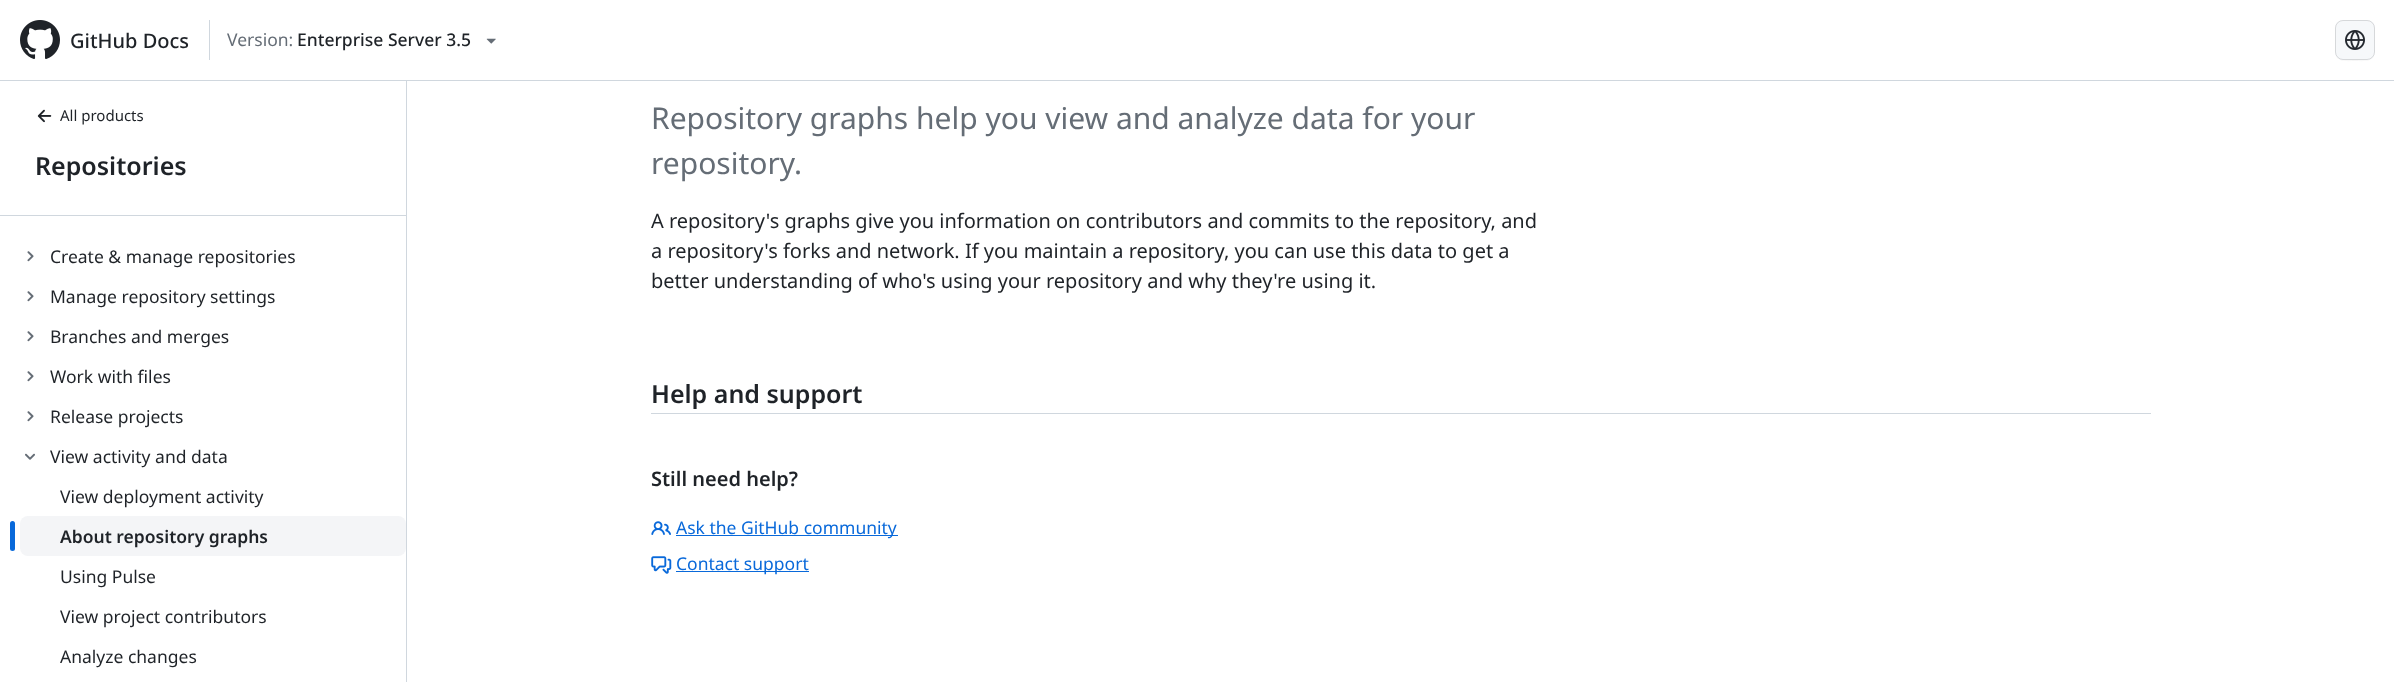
<!DOCTYPE html>
<meta charset="utf-8">
<style>body { margin: 0 } canvas { display: block }</style>
<canvas id="canvas" width="2394" height="682"></canvas>
<script type="module">
  const canvas = document.getElementById("canvas");
  const g = canvas.getContext("2d");
  g.miterLimit = 4;
  g.fontKerning = "normal";
  function drawText(s, x, y, [font, color]) {
    g.font = font;
    g.fillStyle = color;
    g.fillText(s, x, y);
  }
  function fillBox(x, y, w, h, color) {
    g.fillStyle = color;
    g.fillRect(x, y, w, h);
  }
  function fillRounded(x, y, w, h, r, color) {
    g.fillStyle = color;
    g.beginPath();
    g.roundRect(x, y, w, h, r);
    g.fill();
  }
  async function drawPicture(src, x, y, w, h) {
    const img = new Image();
    img.src = src;
    await img.decode();
    g.drawImage(img, x, y, w, h);
  }

  const s1 = ["500 20px Noto Sans", "#1F2328"];
  const s2 = ["17.5px Noto Sans", "#656D76"];
  const s3 = ["500 17.5px Noto Sans", "#1F2328"];
  const s4 = ["15px Noto Sans", "#1F2328"];
  const s5 = ["600 25px Noto Sans", "#1F2328"];
  const s6 = ["17.5px Noto Sans", "#1F2328"];
  const s7 = ["600 17.5px Noto Sans", "#1F2328"];
  const s8 = ["30px Noto Sans", "#656D76"];
  const s9 = ["20px Noto Sans", "#1F2328"];
  const s10 = ["600 20px Noto Sans", "#1F2328"];
  const s11 = ["17.5px Noto Sans", "#0969DA"];

  fillBox(0, 0, 2394, 682, "#FFFFFF");
  fillBox(0, 80, 2394, 1, "#D0D7DE");
  await drawPicture("pic1.png", 20, 20, 40, 39);
  drawText("GitHub Docs", 70, 48, s1);
  fillBox(209, 20, 1, 40, "#D0D7DE");
  drawText("Version:", 227, 46, s2);
  drawText("Enterprise Server 3.5", 297, 46, s3);
  await drawPicture("pic2.png", 486, 38, 10, 6);
  g.fillStyle = "#F6F6F6";
  g.beginPath();
  g.moveTo(2335, 52);
  g.bezierCurveTo(2335, 63, 2348, 61, 2355, 61);
  g.bezierCurveTo(2362, 61, 2375, 63, 2375, 52);
  g.bezierCurveTo(2375, 63, 2361, 60, 2355, 60);
  g.bezierCurveTo(2349, 60, 2335, 63, 2335, 52);
  g.closePath();
  g.fill();
  fillRounded(2335, 20, 40, 40, 8, "#F6F8FA");
  g.beginPath();
  g.roundRect(2335.5, 20.5, 39, 39, 7.5);
  g.strokeStyle = "rgba(31, 35, 40, 0.15)";
  g.stroke();
  await drawPicture("pic3.png", 2345, 30, 20, 20);
  fillBox(406, 81, 1, 601, "#D0D7DE");
  fillBox(0, 215, 406, 1, "#D0D7DE");
  await drawPicture("pic4.png", 37, 109, 15, 14);
  drawText("All products", 60, 121, s4);
  drawText("Repositories", 35, 175, s5);
  await drawPicture("pic5.png", 27, 251, 7, 11);
  drawText("Create & manage repositories", 50, 263, s6);
  await drawPicture("pic5.png", 27, 291, 7, 11);
  drawText("Manage repository settings", 50, 303, s6);
  await drawPicture("pic5.png", 27, 331, 7, 11);
  drawText("Branches and merges", 50, 343, s6);
  await drawPicture("pic5.png", 27, 371, 7, 11);
  drawText("Work with files", 50, 383, s6);
  await drawPicture("pic5.png", 27, 411, 7, 11);
  drawText("Release projects", 50, 423, s6);
  await drawPicture("pic6.png", 25, 453, 10, 7);
  drawText("View activity and data", 50, 463, s6);
  drawText("View deployment activity", 60, 503, s6);
  fillRounded(20, 516, 386, 40, 8, "#F4F5F7");
  fillRounded(10, 521, 5, 30, 2.5, "#0969DA");
  drawText("About repository graphs", 60, 543, s7);
  drawText("Using Pulse", 60, 583, s6);
  drawText("View project contributors", 60, 623, s6);
  drawText("Analyze changes", 60, 663, s6);
  drawText("Repository graphs help you view and analyze data for your", 651, 129, s8);
  drawText("repository.", 651, 174, s8);
  drawText("A repository's graphs give you information on contributors and commits to the repository, and", 651, 228, s9);
  drawText("a repository's forks and network. If you maintain a repository, you can use this data to get a", 651, 258, s9);
  drawText("better understanding of who's using your repository and why they're using it.", 651, 288, s9);
  drawText("Help and support", 651, 403, s5);
  fillBox(651, 413, 1500, 1, "#D0D7DE");
  drawText("Still need help?", 651, 486, s10);
  await drawPicture("pic7.png", 651, 521, 20, 14);
  fillBox(676, 535, 222, 1, "#0969DA");
  drawText("Ask the GitHub community", 676, 534, s11);
  await drawPicture("pic8.png", 651, 556, 21, 18);
  fillBox(676, 571, 133, 1, "#0969DA");
  drawText("Contact support", 676, 570, s11);
</script>
